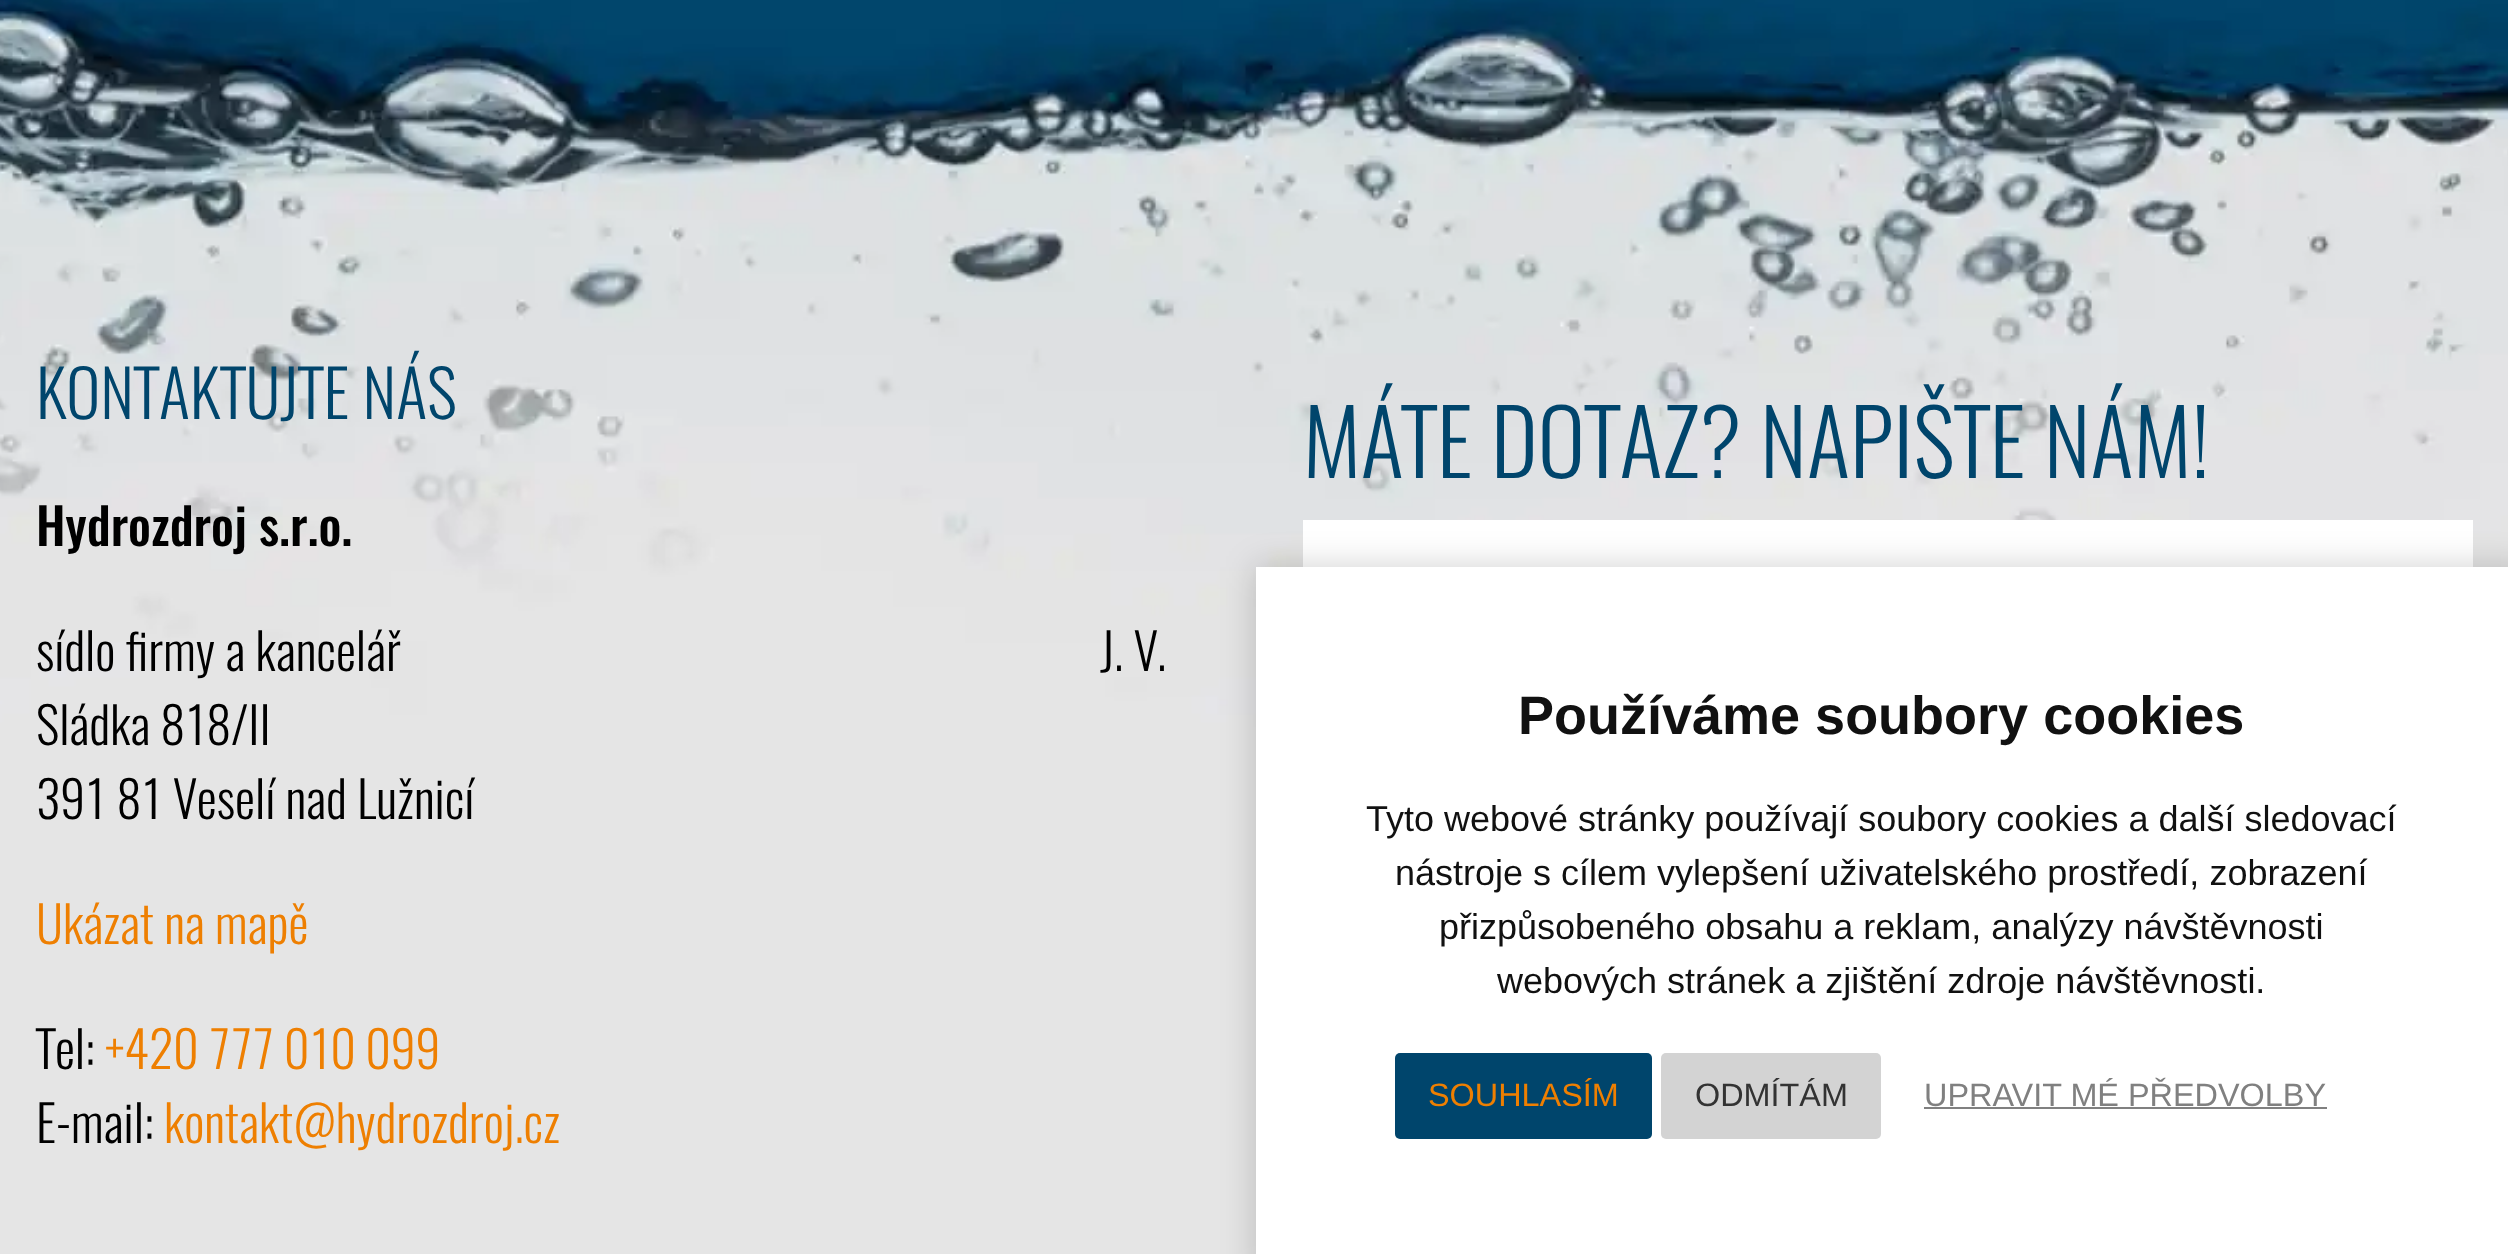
<!DOCTYPE html>
<meta charset="utf-8">
<style>body { margin: 0 } canvas { display: block }</style>
<canvas id="canvas" width="2508" height="1254"></canvas>
<script type="module">
  const canvas = document.getElementById("canvas");
  const g = canvas.getContext("2d");
  g.miterLimit = 4;
  g.fontKerning = "normal";
  function drawText(s, x, y, [font, color]) {
    g.font = font;
    g.fillStyle = color;
    g.fillText(s, x, y);
  }
  function fillBox(x, y, w, h, color) {
    g.fillStyle = color;
    g.fillRect(x, y, w, h);
  }
  function fillRounded(x, y, w, h, r, color) {
    g.fillStyle = color;
    g.beginPath();
    g.roundRect(x, y, w, h, r);
    g.fill();
  }
  async function drawPicture(src, x, y, w, h) {
    const img = new Image();
    img.src = src;
    await img.decode();
    g.drawImage(img, x, y, w, h);
  }

  const s1 = ["300 64.75px Oswald", "#00456C"];
  const s2 = ["500 50.4px Oswald", "#000000"];
  const s3 = ["300 50.4px Oswald", "#000000"];
  const s4 = ["300 50.4px Oswald", "#EE7F01"];
  const s5 = ["300 90px Oswald", "#00456C"];
  const s6 = ["bold 54px Liberation Sans", "#111111"];
  const s7 = ["36px Liberation Sans", "#111111"];
  const s8 = ["32.4px Liberation Sans", "#EE7F01"];
  const s9 = ["32.4px Liberation Sans", "#333333"];
  const s10 = ["32.4px Liberation Sans", "#808080"];

  fillBox(0, 0, 2508, 1254, "#E5E5E5");
  await drawPicture("pic1.png", 0, 0, 2508, 727);
  drawText("KONTAKTUJTE NÁS", 36, 419, s1);
  drawText("Hydrozdroj s.r.o.", 36, 546, s2);
  drawText("sídlo firmy a kancelář                                                                    J. V.", 36, 671, s3);
  drawText("Sládka 818/II", 36, 745, s3);
  drawText("391 81 Veselí nad Lužnicí", 36, 819, s3);
  drawText("Ukázat na mapě", 36, 944, s4);
  drawText("Tel:", 36, 1069, s3);
  drawText("+420 777 010 099", 105, 1069, s4);
  drawText("E-mail:", 36, 1143, s3);
  drawText("kontakt@hydrozdroj.cz", 164, 1143, s4);
  drawText("MÁTE DOTAZ? NAPIŠTE NÁM!", 1303, 478, s5);
  fillBox(1303, 520, 1170, 47, "#FFFFFF");
  g.fillStyle = "rgba(0, 0, 0, 0.19)";
  g.filter = "blur(17px)";
  g.beginPath();
  g.rect(1256, 567, 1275, 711);
  g.fill();
  g.filter = "none";
  fillBox(1256, 567, 1252, 687, "#FFFFFF");
  drawText("Používáme soubory cookies", 1518, 734, s6);
  drawText("Tyto webové stránky používají soubory cookies a další sledovací", 1366, 831, s7);
  drawText("nástroje s cílem vylepšení uživatelského prostředí, zobrazení", 1395, 885, s7);
  drawText("přizpůsobeného obsahu a reklam, analýzy návštěvnosti", 1439, 939, s7);
  drawText("webových stránek a zjištění zdroje návštěvnosti.", 1497, 993, s7);
  fillRounded(1395, 1053, 257, 86, 5, "#00456C");
  drawText("SOUHLASÍM", 1428, 1106, s8);
  fillRounded(1661, 1053, 220, 86, 5, "#D3D3D3");
  drawText("ODMÍTÁM", 1695, 1106, s9);
  drawText("UPRAVIT MÉ PŘEDVOLBY", 1924, 1106, s10);
  fillBox(1924, 1107, 403, 2, "#808080");
</script>
